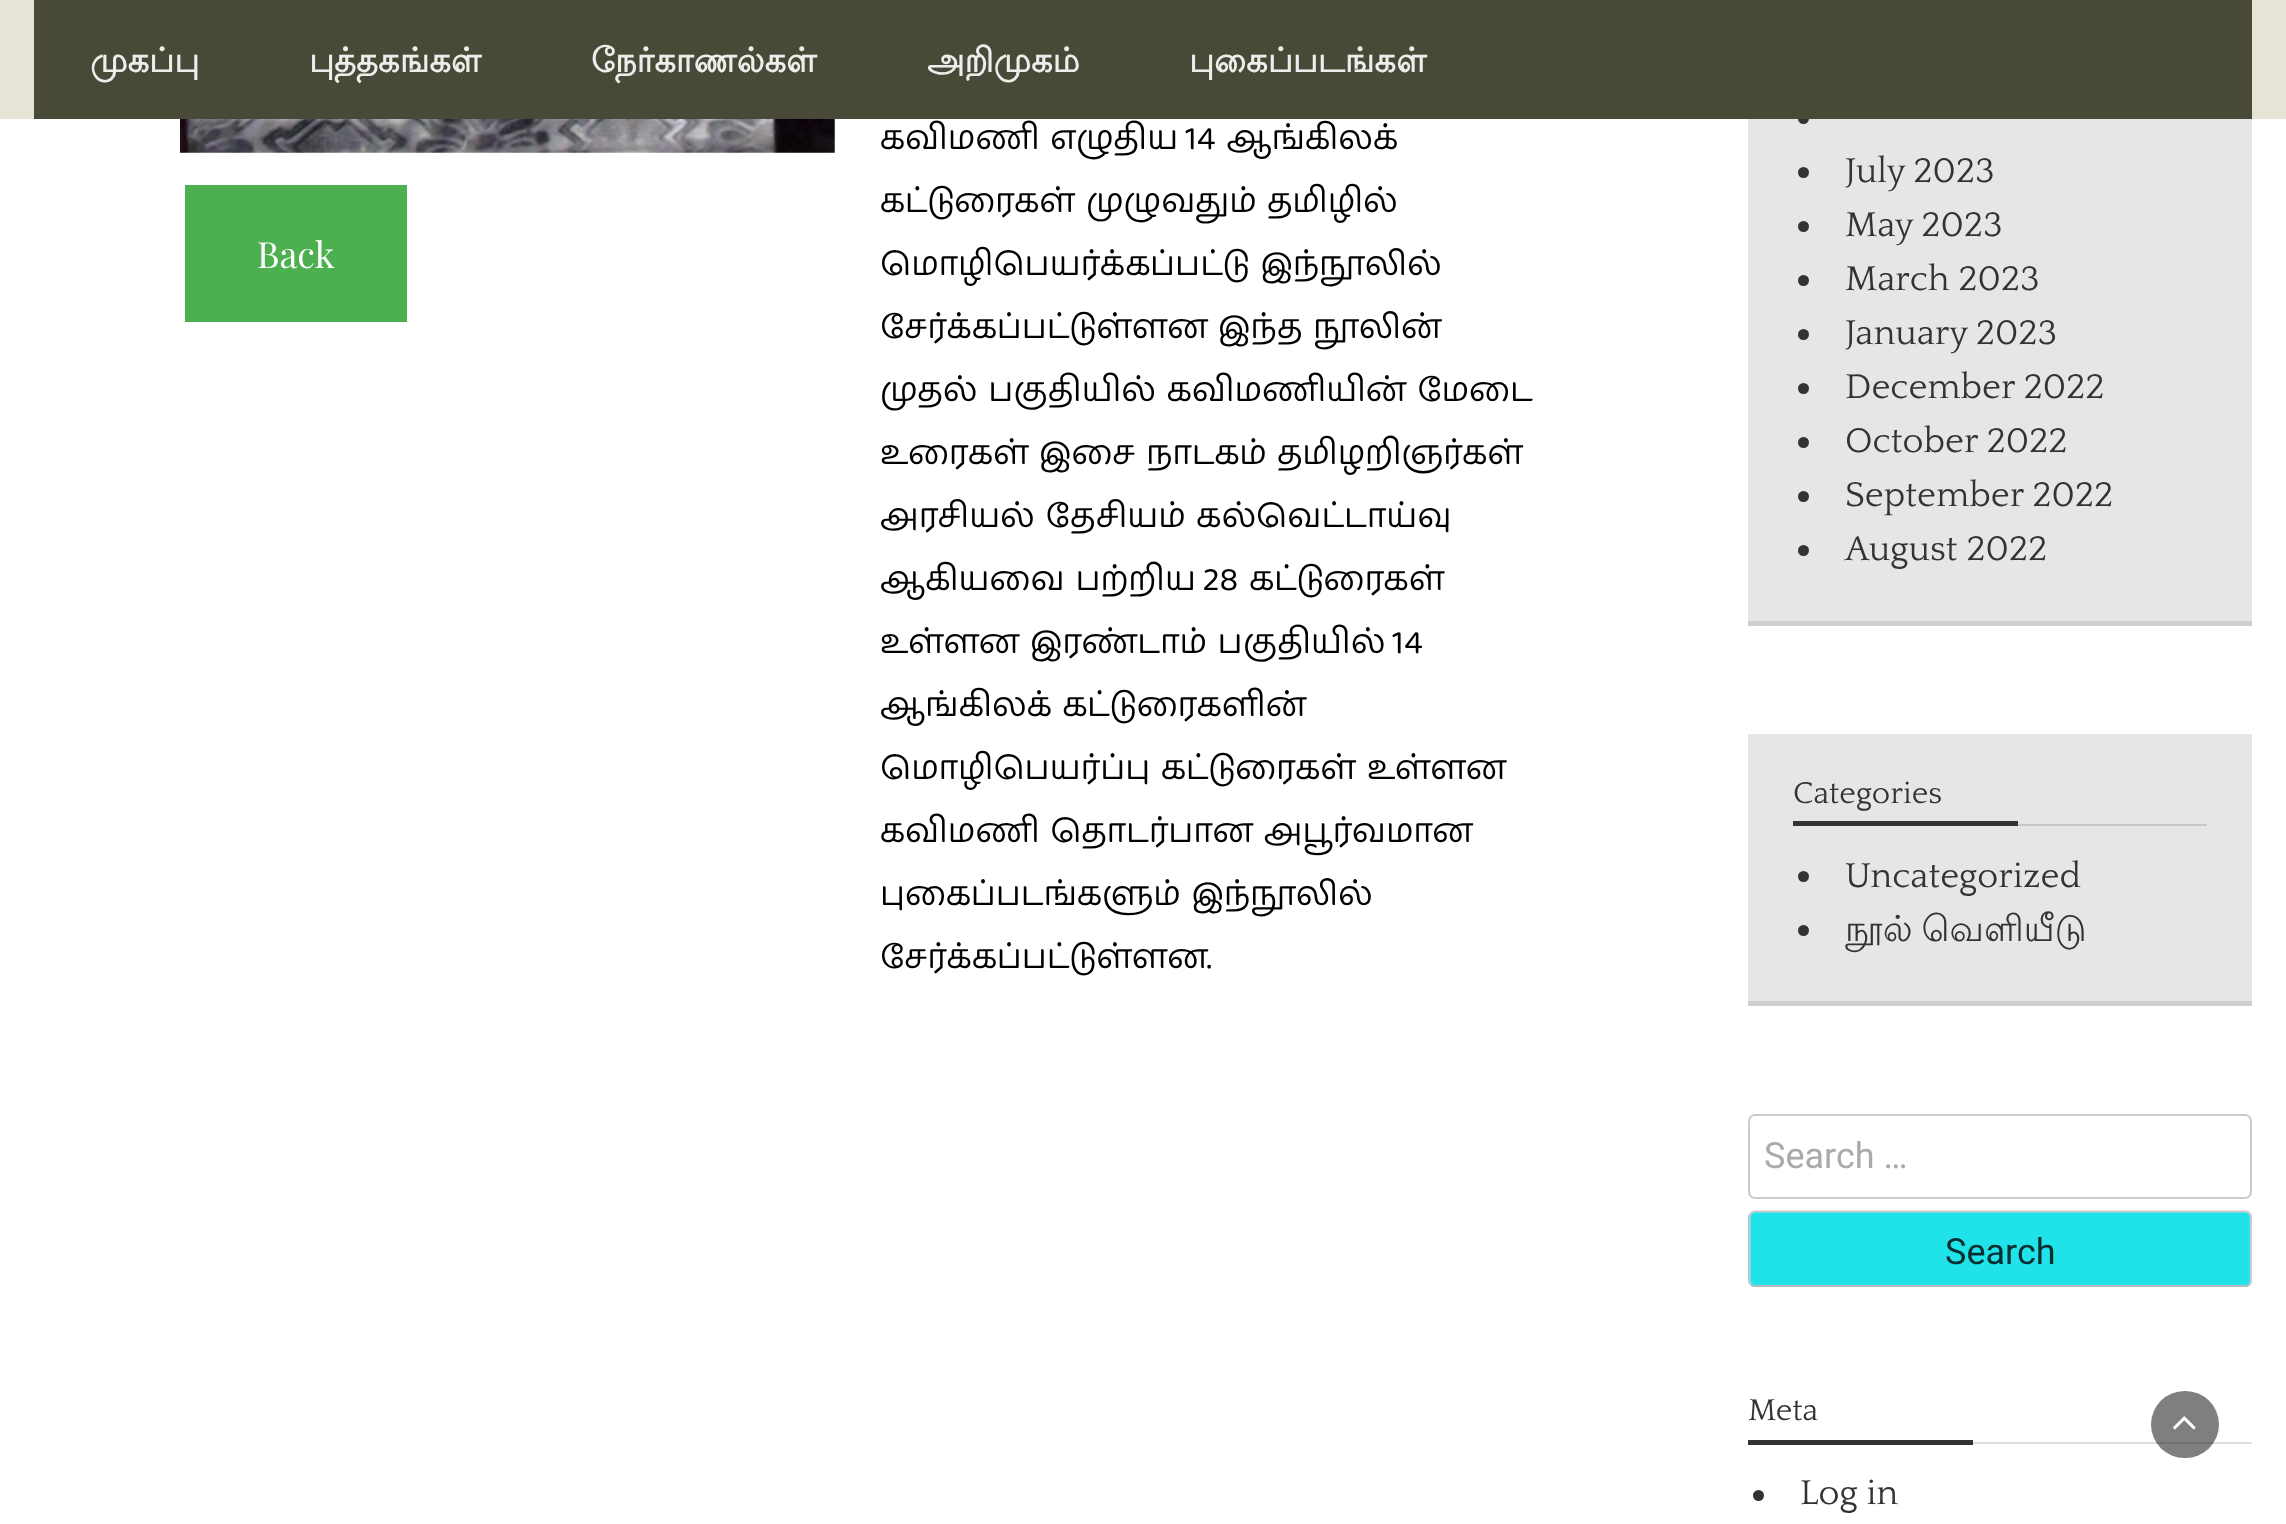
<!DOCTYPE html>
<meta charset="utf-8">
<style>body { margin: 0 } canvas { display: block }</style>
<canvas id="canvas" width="2286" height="1524"></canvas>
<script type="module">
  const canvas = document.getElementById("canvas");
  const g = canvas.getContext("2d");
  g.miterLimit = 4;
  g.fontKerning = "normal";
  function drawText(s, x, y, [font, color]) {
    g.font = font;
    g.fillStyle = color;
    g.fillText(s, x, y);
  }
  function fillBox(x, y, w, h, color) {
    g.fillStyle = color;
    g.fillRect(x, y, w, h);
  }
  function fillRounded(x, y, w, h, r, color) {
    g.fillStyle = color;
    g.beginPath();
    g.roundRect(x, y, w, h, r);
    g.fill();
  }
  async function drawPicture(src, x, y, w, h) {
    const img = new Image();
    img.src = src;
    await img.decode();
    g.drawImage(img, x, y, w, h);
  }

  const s1 = ["bold 33.75px Lohit Tamil", "#EDEDEB"];
  const s2 = ["36px Playfair Display", "#FFFFFF"];
  const s3 = ["33.75px 'Baloo Thambi 2'", "#000000"];
  const s4 = ["36px Quattrocento", "#333333"];
  const s5 = ["31.5px Quattrocento", "#333333"];
  const s6 = ["36px Lohit Tamil", "#333333"];
  const s7 = ["36px Roboto", "#AAAAAA"];
  const s8 = ["36px Roboto", "#062D2F"];

  fillBox(0, 0, 2286, 1524, "#FFFFFF");
  fillBox(1748, 119, 504, 502, "#E6E6E6");
  g.fillStyle = "#333333";
  g.beginPath();
  g.arc(1803.5, 118.5, 5.5, 0, Math.PI * 2);
  g.fill();
  fillBox(0, 0, 2286, 119, "#E6E4D6");
  fillBox(34, 0, 2218, 119, "#494938");
  drawText("முகப்பு", 90, 72, s1);
  drawText("புத்தகங்கள்", 309, 72, s1);
  drawText("நேர்காணல்கள்", 591, 72, s1);
  drawText("அறிமுகம்", 927, 72, s1);
  drawText("புகைப்படங்கள்", 1189, 72, s1);
  await drawPicture("pic1.png", 180, 119, 655, 34);
  fillBox(185, 185, 222, 137, "#4CAF50");
  drawText("Back", 257, 268, s2);
  drawText("கவிமணி எழுதிய 14 ஆங்கிலக்", 880, 149, s3);
  drawText("கட்டுரைகள்", 880, 212, s3);
  drawText("முழுவதும் தமிழில்", 1086, 212, s3);
  drawText("மொழிபெயர்க்கப்பட்டு இந்நூலில்", 880, 275, s3);
  drawText("சேர்க்கப்பட்டுள்ளன", 880, 338, s3);
  drawText("இந்த நூலின்", 1218, 338, s3);
  drawText("முதல் பகுதியில் கவிமணியின் மேடை", 880, 401, s3);
  drawText("உரைகள்", 880, 464, s3);
  drawText("இசை நாடகம் தமிழறிஞர்கள்", 1039, 464, s3);
  drawText("அரசியல் தேசியம் கல்வெட்டாய்வு", 880, 527, s3);
  drawText("ஆகியவை பற்றிய 28 கட்டுரைகள்", 880, 590, s3);
  drawText("உள்ளன", 880, 653, s3);
  drawText("இரண்டாம் பகுதியில் 14", 1030, 653, s3);
  drawText("ஆங்கிலக் கட்டுரைகளின்", 880, 716, s3);
  drawText("மொழிபெயர்ப்பு", 880, 779, s3);
  drawText("கட்டுரைகள் உள்ளன", 1161, 779, s3);
  drawText("கவிமணி தொடர்பான அபூர்வமான", 880, 842, s3);
  drawText("புகைப்படங்களும் இந்நூலில்", 880, 905, s3);
  drawText("சேர்க்கப்பட்டுள்ளன.", 880, 968, s3);
  fillBox(1748, 621, 504, 5, "#CFCFCF");
  g.fillStyle = "#333333";
  g.beginPath();
  g.arc(1803.5, 172.5, 5.5, 0, Math.PI * 2);
  g.fill();
  drawText("July 2023", 1845, 182, s4);
  g.beginPath();
  g.arc(1803.5, 226.5, 5.5, 0, Math.PI * 2);
  g.fill();
  drawText("May 2023", 1845, 236, s4);
  g.beginPath();
  g.arc(1803.5, 280.5, 5.5, 0, Math.PI * 2);
  g.fill();
  drawText("March 2023", 1845, 290, s4);
  g.beginPath();
  g.arc(1803.5, 334.5, 5.5, 0, Math.PI * 2);
  g.fill();
  drawText("January 2023", 1845, 344, s4);
  g.beginPath();
  g.arc(1803.5, 388.5, 5.5, 0, Math.PI * 2);
  g.fill();
  drawText("December 2022", 1845, 398, s4);
  g.beginPath();
  g.arc(1803.5, 442.5, 5.5, 0, Math.PI * 2);
  g.fill();
  drawText("October 2022", 1845, 452, s4);
  g.beginPath();
  g.arc(1803.5, 496.5, 5.5, 0, Math.PI * 2);
  g.fill();
  drawText("September 2022", 1845, 506, s4);
  g.beginPath();
  g.arc(1803.5, 550.5, 5.5, 0, Math.PI * 2);
  g.fill();
  drawText("August 2022", 1845, 560, s4);
  fillBox(1748, 734, 504, 267, "#E6E6E6");
  fillBox(1748, 1001, 504, 5, "#CFCFCF");
  fillBox(2018, 824, 189, 2, "#C8C8C8");
  drawText("Categories", 1793, 803, s5);
  fillBox(1793, 821, 225, 5, "#333333");
  g.beginPath();
  g.arc(1803.5, 876.5, 5.5, 0, Math.PI * 2);
  g.fill();
  drawText("Uncategorized", 1845, 887, s4);
  g.beginPath();
  g.arc(1803.5, 930.5, 5.5, 0, Math.PI * 2);
  g.fill();
  g.wordSpacing = "-2px";
  drawText("நூல் வெளியீடு", 1845, 941, s6);
  g.beginPath();
  g.roundRect(1749, 1115, 502, 83, 6);
  g.strokeStyle = "#CCCCCC";
  g.lineWidth = 2;
  g.stroke();
  g.wordSpacing = "0px";
  drawText("Search …", 1764, 1168, s7);
  fillRounded(1748, 1211, 504, 76, 7, "#20E3EA");
  g.beginPath();
  g.moveTo(2249.5, 1284);
  g.bezierCurveTo(2248.5, 1285.5, 2247, 1286, 2245.5, 1286);
  g.lineTo(1755, 1286);
  g.bezierCurveTo(1753.5, 1286, 1752, 1285.5, 1751, 1284);
  g.strokeStyle = "#BBBBBB";
  g.lineWidth = 2.2;
  g.stroke();
  g.beginPath();
  g.moveTo(1751, 1284);
  g.bezierCurveTo(1750, 1283, 1749.5, 1281.5, 1749.5, 1280);
  g.lineTo(1749.5, 1217);
  g.bezierCurveTo(1749.5, 1216, 1750, 1214.5, 1751, 1213.5);
  g.bezierCurveTo(1752, 1212, 1753.5, 1211.5, 1755, 1211.5);
  g.lineTo(2245.5, 1211.5);
  g.bezierCurveTo(2247, 1211.5, 2248.5, 1212, 2249.5, 1213.5);
  g.bezierCurveTo(2250.5, 1214.5, 2251, 1216, 2251, 1217);
  g.lineTo(2251, 1280);
  g.bezierCurveTo(2251, 1281.5, 2250.5, 1283, 2249.5, 1284);
  g.strokeStyle = "#CCCCCC";
  g.stroke();
  drawText("Search", 1945, 1264, s8);
  fillBox(1973, 1442, 279, 2, "#DEDEDE");
  drawText("Meta", 1748, 1420, s5);
  fillBox(1748, 1440, 225, 5, "#333333");
  g.beginPath();
  g.arc(1758.5, 1495.5, 5.5, 0, Math.PI * 2);
  g.fill();
  drawText("Log in", 1800, 1504, s4);
  fillRounded(2151, 1391, 68, 67, 33.5, "rgba(0, 0, 0, 0.5)");
  await drawPicture("pic2.png", 2173, 1416, 23, 14);
</script>
